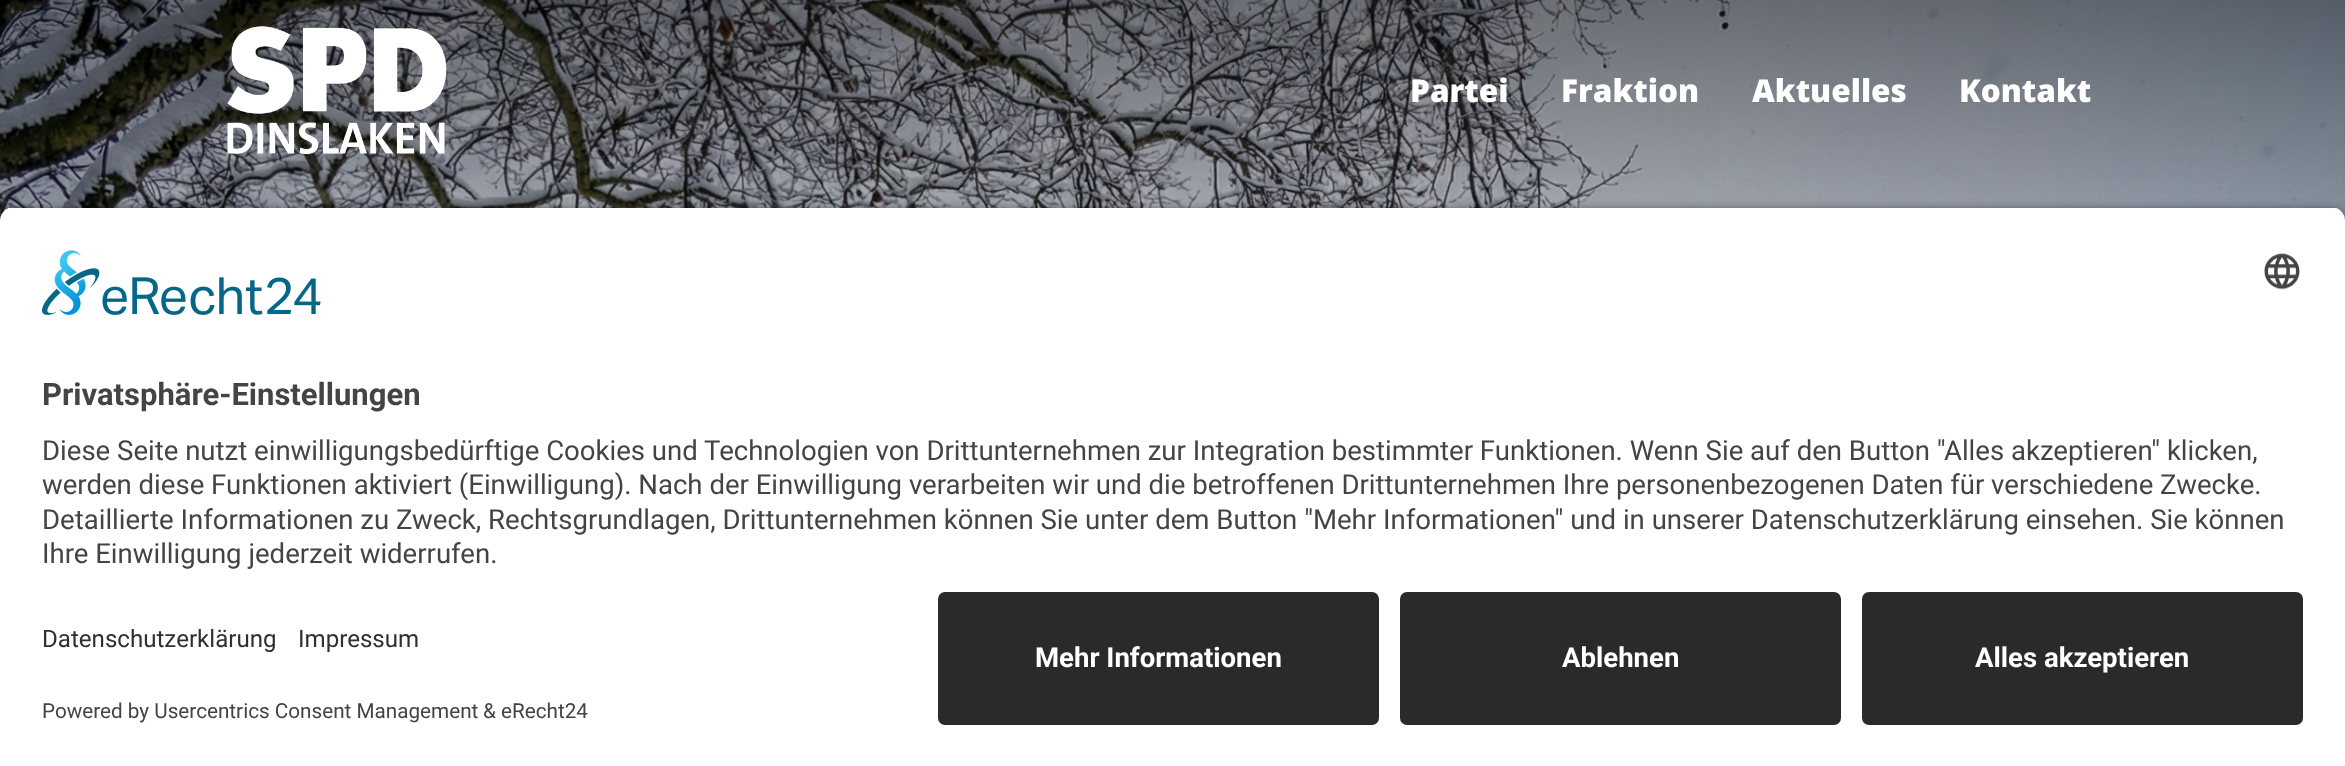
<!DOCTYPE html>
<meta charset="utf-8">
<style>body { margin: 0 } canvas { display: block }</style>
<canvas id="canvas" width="2345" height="766"></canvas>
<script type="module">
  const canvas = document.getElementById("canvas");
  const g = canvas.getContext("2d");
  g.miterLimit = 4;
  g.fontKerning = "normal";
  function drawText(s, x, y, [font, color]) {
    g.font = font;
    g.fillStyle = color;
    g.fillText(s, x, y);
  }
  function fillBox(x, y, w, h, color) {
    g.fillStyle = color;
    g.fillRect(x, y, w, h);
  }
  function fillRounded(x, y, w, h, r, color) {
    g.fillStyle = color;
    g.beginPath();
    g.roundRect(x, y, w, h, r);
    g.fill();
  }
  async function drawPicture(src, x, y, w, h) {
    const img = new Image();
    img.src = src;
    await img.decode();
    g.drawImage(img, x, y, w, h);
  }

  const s1 = ["800 31.5px Open Sans", "#FFFFFF"];
  const s2 = ["bold 31px Roboto", "#444444"];
  const s3 = ["27.55px Roboto", "#444444"];
  const s4 = ["24.1px Roboto", "#303030"];
  const s5 = ["20.7px Roboto", "#444444"];
  const s6 = ["bold 27.55px Roboto", "#FFFFFF"];

  fillBox(0, 0, 2345, 766, "#FFFFFF");
  await drawPicture("pic1.png", 0, 0, 2345, 221);
  await drawPicture("pic2.png", 227, 26, 220, 88);
  await drawPicture("pic3.png", 227, 122, 218, 32);
  drawText("Partei", 1410, 102, s1);
  drawText("Fraktion", 1561, 102, s1);
  drawText("Aktuelles", 1752, 102, s1);
  drawText("Kontakt", 1959, 102, s1);
  g.fillStyle = "rgba(0, 0, 0, 0.8)";
  g.filter = "blur(6px)";
  g.beginPath();
  g.roundRect(0, 212, 2345, 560, 14);
  g.fill();
  g.filter = "none";
  g.save();
  g.beginPath();
  g.roundRect(0, 207, 2345, 371, [14, 14, 0, 0]);
  g.clip();
  fillBox(0, 208, 2345, 370, "#FFFFFF");
  g.restore();
  await drawPicture("pic4.png", 42, 250, 279, 65);
  await drawPicture("pic5.png", 2264, 253, 36, 37);
  drawText("Privatsphäre-Einstellungen", 42, 405, s2);
  drawText("Diese Seite nutzt einwilligungsbedürftige Cookies und Technologien von Drittunternehmen zur Integration bestimmter Funktionen. Wenn Sie auf den Button \"Alles akzeptieren\" klicken,", 42, 460, s3);
  drawText("werden diese Funktionen aktiviert (Einwilligung). Nach der Einwilligung verarbeiten wir und die betroffenen Drittunternehmen Ihre personenbezogenen Daten für verschiedene Zwecke.", 42, 494, s3);
  drawText("Detaillierte Informationen zu Zweck, Rechtsgrundlagen, Drittunternehmen können Sie unter dem Button \"Mehr Informationen\" und in unserer Datenschutzerklärung einsehen. Sie können", 42, 529, s3);
  drawText("Ihre Einwilligung jederzeit widerrufen.", 42, 563, s3);
  fillBox(0, 578, 2345, 188, "#FFFFFF");
  drawText("Datenschutzerklärung", 42, 647, s4);
  drawText("Impressum", 298, 647, s4);
  drawText("Powered by Usercentrics Consent Management", 42, 718, s5);
  drawText("& eRecht24", 483, 718, s5);
  fillRounded(938, 592, 441, 133, 7, "#292A2B");
  drawText("Mehr Informationen", 1035, 667, s6);
  fillRounded(1400, 592, 441, 133, 7, "#292A2B");
  drawText("Ablehnen", 1562, 667, s6);
  fillRounded(1862, 592, 441, 133, 7, "#292A2B");
  drawText("Alles akzeptieren", 1975, 667, s6);
</script>
